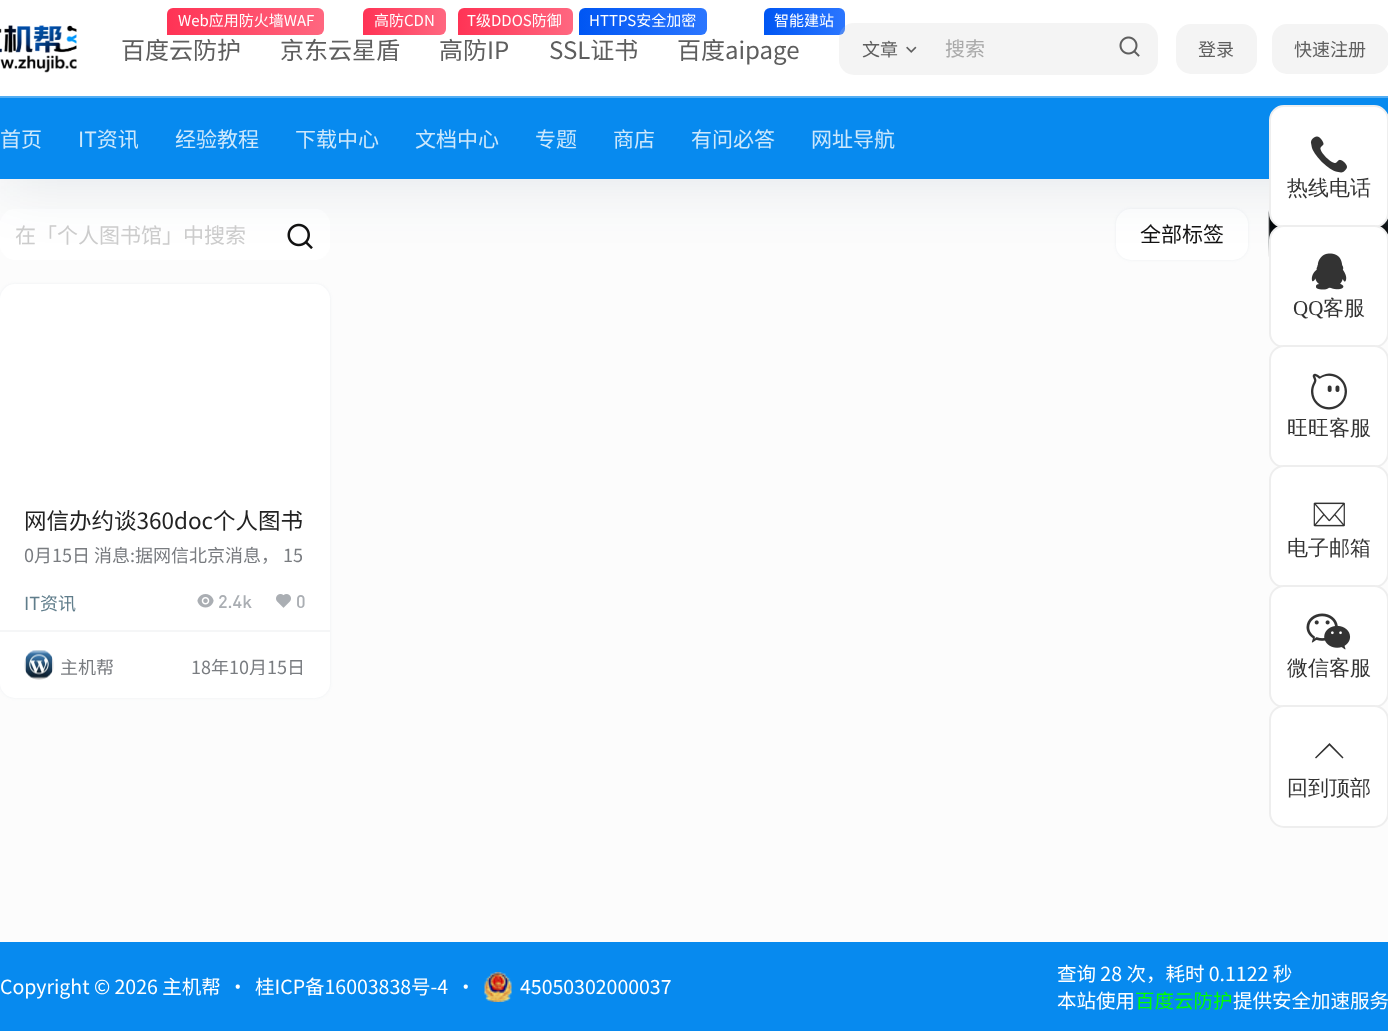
<!DOCTYPE html>
<meta charset="utf-8">
<style>body { margin: 0 } canvas { display: block }</style>
<canvas id="canvas" width="1388" height="1031"></canvas>
<script type="module">
  const canvas = document.getElementById("canvas");
  const g = canvas.getContext("2d");
  g.miterLimit = 4;
  g.fontKerning = "normal";
  function drawText(s, x, y, [font, color]) {
    g.font = font;
    g.fillStyle = color;
    g.fillText(s, x, y);
  }
  function fillBox(x, y, w, h, color) {
    g.fillStyle = color;
    g.fillRect(x, y, w, h);
  }
  function fillRounded(x, y, w, h, r, color) {
    g.fillStyle = color;
    g.beginPath();
    g.roundRect(x, y, w, h, r);
    g.fill();
  }
  async function drawPicture(src, x, y, w, h) {
    const img = new Image();
    img.src = src;
    await img.decode();
    g.drawImage(img, x, y, w, h);
  }
  let gradient;

  const s1 = ["15px Noto Sans CJK SC", "#FFFFFF"];
  const s2 = ["24px Noto Sans CJK SC", "#5E5E5E"];
  const s3 = ["18px Noto Sans CJK SC", "#5E5E5E"];
  const s4 = ["20px Noto Sans CJK SC", "#A9A9A9"];
  const s5 = ["21px Noto Sans CJK SC", "#CDE8FC"];
  const s6 = ["21px Noto Sans CJK SC", "#CCCCCC"];
  const s7 = ["21px Noto Sans CJK SC", "#121212"];
  const s8 = ["500 21px WenQuanYi Zen Hei", "#333333"];
  const s9 = ["21px Liberation Serif", "#333333"];
  const s10 = ["22.5px Noto Sans CJK SC", "#222222"];
  const s11 = ["18px Noto Sans CJK SC", "#797C80"];
  const s12 = ["18px Noto Sans CJK SC", "#607D8B"];
  const s13 = ["500 18px DIN", "#AAAEB3"];
  const s14 = ["19.5px Noto Sans CJK SC", "#FFFFFF"];
  const s15 = ["19.5px Noto Sans CJK SC", "#00FF00"];

  fillBox(0, 0, 1388, 1031, "#FCFCFC");
  fillRounded(0, 209, 330, 51, 15, "#FFFFFF");
  await drawPicture("pic4.png", 287, 223, 26, 26);
  g.fillStyle = "rgba(98, 124, 153, 0.1)";
  g.filter = "blur(1.5px)";
  g.beginPath();
  g.roundRect(1116, 209, 132, 51, 15);
  g.fill();
  g.filter = "none";
  fillRounded(1116, 209, 132, 51, 15, "#FFFFFF");
  await drawPicture("pic5.png", 1268, 210, 120, 47);
  fillBox(1269, 213, 119, 27, "rgba(0, 0, 0, 0.26)");
  g.fillStyle = "rgba(17, 58, 93, 0.1)";
  g.filter = "blur(30px)";
  g.beginPath();
  g.rect(0, 8, 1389, 178);
  g.fill();
  g.filter = "none";
  fillBox(0, 0, 1388, 96, "#FFFFFF");
  await drawPicture("pic1.png", 0, 25, 77, 48);
  gradient = g.createLinearGradient(167, 20, 325, 20);
  gradient.addColorStop(0, "#FF3355");
  gradient.addColorStop(1, "#FF6780");
  g.fillStyle = gradient;
  g.beginPath();
  g.roundRect(167, 8, 157, 27, [6, 6, 6, 0]);
  g.fill();
  drawText("Web应用防火墙WAF", 178, 26, s1);
  drawText("百度云防护", 121, 59, s2);
  gradient = g.createLinearGradient(363, 20, 446, 20);
  gradient.addColorStop(0, "#FF3355");
  gradient.addColorStop(1, "#FF6780");
  g.fillStyle = gradient;
  g.beginPath();
  g.roundRect(363, 8, 83, 27, [6, 6, 6, 0]);
  g.fill();
  drawText("高防CDN", 374, 26, s1);
  drawText("京东云星盾", 280, 59, s2);
  gradient = g.createLinearGradient(457, 20, 572, 20);
  gradient.addColorStop(0, "#FF3355");
  gradient.addColorStop(1, "#FF6780");
  g.fillStyle = gradient;
  g.beginPath();
  g.roundRect(458, 8, 115, 27, [6, 6, 6, 0]);
  g.fill();
  drawText("T级DDOS防御", 467, 26, s1);
  drawText("高防IP", 439, 59, s2);
  gradient = g.createLinearGradient(579, 20, 706, 20);
  gradient.addColorStop(0, "#0056F3");
  gradient.addColorStop(1, "#2B76FF");
  g.fillStyle = gradient;
  g.beginPath();
  g.roundRect(579, 8, 128, 27, [6, 6, 6, 0]);
  g.fill();
  drawText("HTTPS安全加密", 589, 26, s1);
  drawText("SSL证书", 549, 59, s2);
  gradient = g.createLinearGradient(764, 20, 845, 20);
  gradient.addColorStop(0, "#0056F3");
  gradient.addColorStop(1, "#2B76FF");
  g.fillStyle = gradient;
  g.beginPath();
  g.roundRect(764, 8, 81, 27, [6, 6, 6, 0]);
  g.fill();
  drawText("智能建站", 774, 26, s1);
  drawText("百度aipage", 677, 59, s2);
  fillRounded(839, 23, 319, 52, 15, "rgba(204, 204, 204, 0.21)");
  drawText("文章", 862, 56, s3);
  await drawPicture("pic2.png", 906, 46, 11, 7);
  drawText("搜索", 945, 56, s4);
  await drawPicture("pic3.png", 1119, 36, 21, 21);
  fillRounded(1176, 24, 81, 50, 15, "#F4F4F4");
  drawText("登录", 1198, 56, s3);
  fillRounded(1272, 24, 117, 50, 15, "#F4F4F4");
  drawText("快速注册", 1294, 56, s3);
  fillBox(0, 98, 1388, 81, "#078AEF");
  fillBox(0, 96, 1388, 2, "#53ADF2");
  drawText("首页", 0, 147, s5);
  drawText("IT资讯", 78, 147, s5);
  drawText("经验教程", 175, 147, s5);
  drawText("下载中心", 295, 147, s5);
  drawText("文档中心", 415, 147, s5);
  drawText("专题", 535, 147, s5);
  drawText("商店", 613, 147, s5);
  drawText("有问必答", 691, 147, s5);
  drawText("网址导航", 811, 147, s5);
  drawText("在「个人图书馆」中搜索", 15, 243, s6);
  drawText("全部标签", 1140, 242, s7);
  g.fillStyle = "#FFFFFF";
  g.beginPath();
  g.roundRect(1270, 106, 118, 121, 14);
  g.fill();
  g.strokeStyle = "#EEEEEE";
  g.lineWidth = 2;
  g.stroke();
  await drawPicture("pic6.png", 1310, 136, 37, 37);
  drawText("热线电话", 1287, 195, s8);
  g.fillStyle = "#FFFFFF";
  g.beginPath();
  g.roundRect(1270, 226, 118, 121, 14);
  g.fill();
  g.stroke();
  await drawPicture("pic7.png", 1311, 253, 36, 37);
  drawText("QQ", 1293, 315, s9);
  drawText("客服", 1323, 315, s8);
  g.fillStyle = "#FFFFFF";
  g.beginPath();
  g.roundRect(1270, 346, 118, 121, 14);
  g.fill();
  g.stroke();
  await drawPicture("pic8.png", 1311, 373, 36, 37);
  drawText("旺旺客服", 1287, 435, s8);
  g.fillStyle = "#FFFFFF";
  g.beginPath();
  g.roundRect(1270, 466, 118, 121, 14);
  g.fill();
  g.stroke();
  await drawPicture("pic9.png", 1313, 502, 32, 25);
  drawText("电子邮箱", 1287, 555, s8);
  g.fillStyle = "#FFFFFF";
  g.beginPath();
  g.roundRect(1270, 586, 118, 121, 14);
  g.fill();
  g.stroke();
  await drawPicture("pic10.png", 1306, 613, 45, 37);
  drawText("微信客服", 1287, 675, s8);
  g.fillStyle = "#FFFFFF";
  g.beginPath();
  g.roundRect(1270, 706, 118, 121, 14);
  g.fill();
  g.stroke();
  g.fillStyle = "#333333";
  g.beginPath();
  g.moveTo(1343.5, 757.5);
  g.lineTo(1329.5, 743);
  g.lineTo(1315, 757.5);
  g.lineTo(1316, 758.5);
  g.lineTo(1329.5, 745.5);
  g.lineTo(1342.5, 758.5);
  g.closePath();
  g.fill();
  drawText("回到顶部", 1287, 795, s8);
  g.fillStyle = "rgba(98, 124, 153, 0.1)";
  g.filter = "blur(1.5px)";
  g.beginPath();
  g.roundRect(0, 284, 330, 414, 15);
  g.fill();
  g.filter = "none";
  fillRounded(0, 284, 330, 414, 15, "#FFFFFF");
  drawText("网信办约谈360doc个人图书", 24, 529, s10);
  drawText("0月15日 消息:据网信北京消息， 15", 24, 562, s11);
  drawText("IT资讯", 24, 610, s12);
  await drawPicture("pic11.png", 197, 594, 17, 14);
  drawText("2.4k", 218, 608, s13);
  await drawPicture("pic12.png", 276, 594, 15, 14);
  drawText("0", 296, 608, s13);
  fillBox(0, 630, 330, 2, "#F5F6F7");
  g.fillStyle = "#EEEEEE";
  g.beginPath();
  g.arc(39, 665, 15, 0, Math.PI * 2);
  g.fill();
  await drawPicture("pic13.png", 25, 650, 28, 30);
  g.save();
  g.beginPath();
  g.rect(60, 654, 54, 21);
  g.clip();
  drawText("主机帮", 60, 674, s11);
  g.restore();
  g.save();
  g.beginPath();
  g.rect(192, 654, 114, 21);
  g.clip();
  drawText("18年10月15日", 191, 674, s11);
  g.restore();
  fillBox(0, 942, 1388, 89, "#078AEF");
  drawText("Copyright © 2026 主机帮", 0, 994, s14);
  drawText("・", 228, 994, s14);
  drawText("桂ICP备16003838号-4", 255, 994, s14);
  drawText("・", 456, 994, s14);
  await drawPicture("pic14.png", 484, 972, 28, 30);
  drawText("45050302000037", 520, 994, s14);
  drawText("查询 28 次，耗时 0.1122 秒", 1057, 981, s14);
  drawText("本站使用", 1057, 1008, s14);
  drawText("百度云防护", 1135, 1008, s15);
  drawText("提供安全加速服务", 1233, 1008, s14);
</script>
